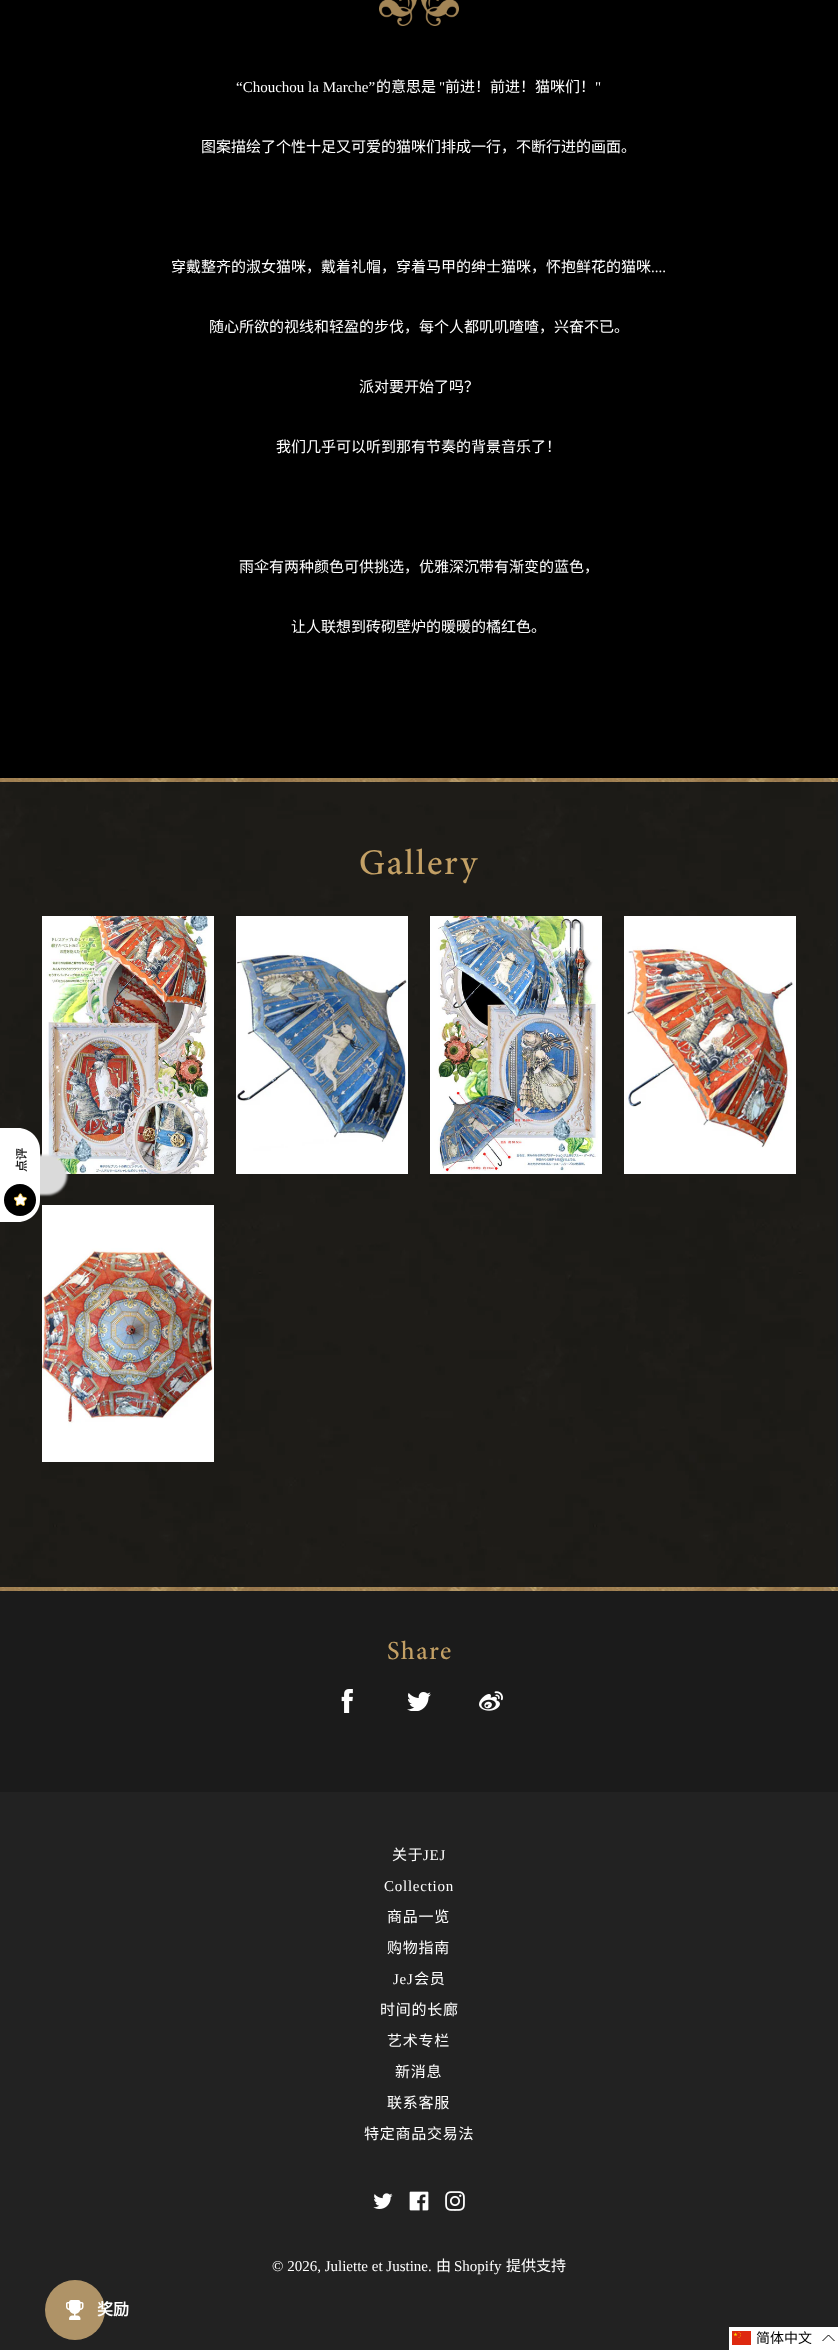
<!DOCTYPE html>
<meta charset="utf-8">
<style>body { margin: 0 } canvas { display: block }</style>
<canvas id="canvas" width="838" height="2350"></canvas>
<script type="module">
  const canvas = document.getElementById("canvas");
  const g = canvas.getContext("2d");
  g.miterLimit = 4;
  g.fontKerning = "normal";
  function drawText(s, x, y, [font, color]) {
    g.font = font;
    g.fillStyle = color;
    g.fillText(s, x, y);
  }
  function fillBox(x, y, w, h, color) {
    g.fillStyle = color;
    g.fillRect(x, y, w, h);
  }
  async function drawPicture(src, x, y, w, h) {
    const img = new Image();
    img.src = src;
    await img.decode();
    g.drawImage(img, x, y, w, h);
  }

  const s1 = ["bold 16px Noto Sans CJK SC", "#FFFFFF"];
  const s2 = ["15px Liberation Serif", "#FFFFFF"];
  const s3 = ["15px Noto Sans CJK SC", "#FFFFFF"];
  const s4 = ["500 36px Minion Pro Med", "#C3A065"];
  const s5 = ["500 26px Minion Pro Med", "#C3A065"];
  const s6 = ["14px Noto Sans CJK SC", "#000000"];

  fillBox(0, 0, 838, 2350, "#1B1B1B");
  await drawPicture("pic5.png", 0, 782, 836, 805);
  await drawPicture("pic6.png", 42, 916, 172, 258);
  g.fillStyle = "#DADADA";
  g.filter = "blur(1px)";
  g.beginPath();
  g.roundRect(-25, 1155, 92, 40, 22);
  g.fill();
  g.filter = "none";
  g.fillStyle = "#FFFFFF";
  g.beginPath();
  g.moveTo(0, 1222);
  g.lineTo(0, 1128);
  g.lineTo(18, 1128);
  g.bezierCurveTo(30, 1128, 40, 1138, 40, 1150);
  g.lineTo(40, 1200);
  g.bezierCurveTo(40, 1212, 30, 1222, 18, 1222);
  g.closePath();
  g.fill();
  g.font = "bold 12px Noto Sans CJK SC";
  g.fillStyle = "#1A1A1A";
  g.save();
  g.translate(26, 1172);
  g.rotate(-90 * Math.PI / 180);
  g.fillText("点评", 0, 0);
  g.restore();
  g.fillStyle = "#000000";
  g.beginPath();
  g.arc(20, 1200, 16, 0, Math.PI * 2);
  g.fill();
  await drawPicture("pic1.png", 13, 1193, 14, 13);
  fillBox(0, 1792, 838, 558, "#222222");
  g.fillStyle = "#AF9367";
  g.beginPath();
  g.arc(75, 2310, 30, 0, Math.PI * 2);
  g.fill();
  await drawPicture("pic2.png", 66, 2300, 18, 20);
  drawText("奖励", 97, 2315, s1);
  fillBox(0, 0, 838, 778, "#000000");
  await drawPicture("pic3.png", 379, 0, 80, 26);
  drawText("“Chouchou la Marche”", 236, 92, s2);
  drawText("的意思是", 376, 92, s3);
  drawText("\"", 439, 92, s2);
  drawText("前进！前进！猫咪们！", 445, 92, s3);
  drawText("\"", 595, 92, s2);
  drawText("图案描绘了个性十足又可爱的猫咪们排成一行，不断行进的画面。", 201, 152, s3);
  drawText("穿戴整齐的淑女猫咪，戴着礼帽，穿着马甲的绅士猫咪，怀抱鲜花的猫咪", 171, 272, s3);
  drawText("....", 651, 272, s2);
  drawText("随心所欲的视线和轻盈的步伐，每个人都叽叽喳喳，兴奋不已。", 209, 332, s3);
  drawText("派对要开始了吗？", 359, 392, s3);
  drawText("我们几乎可以听到那有节奏的背景音乐了！", 276, 452, s3);
  drawText("雨伞有两种颜色可供挑选，优雅深沉带有渐变的蓝色，", 239, 572, s3);
  drawText("让人联想到砖砌壁炉的暖暖的橘红色。", 291, 632, s3);
  await drawPicture("pic4.png", 0, 778, 838, 4);
  g.letterSpacing = "1.75px";
  drawText("Gallery", 359, 874, s4);
  await drawPicture("pic7.png", 236, 916, 172, 258);
  await drawPicture("pic8.png", 430, 916, 172, 258);
  await drawPicture("pic9.png", 624, 916, 172, 258);
  await drawPicture("pic10.png", 42, 1205, 172, 257);
  await drawPicture("pic4.png", 0, 1587, 838, 4);
  g.letterSpacing = "1.5px";
  drawText("Share", 387, 1659, s5);
  await drawPicture("pic11.png", 341, 1689, 12, 24);
  await drawPicture("pic12.png", 407, 1692, 24, 19);
  await drawPicture("pic13.png", 479, 1691, 24, 20);
  g.letterSpacing = "0.75px";
  drawText("关于", 392, 1860, s3);
  drawText("JEJ", 423, 1860, s2);
  drawText("Collection", 384, 1891, s2);
  drawText("商品一览", 387, 1922, s3);
  drawText("购物指南", 387, 1953, s3);
  drawText("JeJ", 393, 1984, s2);
  drawText("会员", 414, 1984, s3);
  drawText("时间的长廊", 380, 2015, s3);
  drawText("艺术专栏", 387, 2046, s3);
  drawText("新消息", 395, 2077, s3);
  drawText("联系客服", 387, 2108, s3);
  drawText("特定商品交易法", 364, 2139, s3);
  await drawPicture("pic14.png", 373, 2193, 20, 16);
  await drawPicture("pic15.png", 409, 2191, 20, 20);
  await drawPicture("pic16.png", 445, 2191, 20, 20);
  g.letterSpacing = "0px";
  drawText("© 2026, Juliette et Justine.", 272, 2271, s2);
  drawText("由", 436, 2271, s3);
  drawText("Shopify", 454, 2271, s2);
  drawText("提供支持", 506, 2271, s3);
  fillBox(729, 2327, 109, 23, "#FFFFFF");
  await drawPicture("pic17.png", 732, 2331, 19, 14);
  drawText("简体中文", 756, 2343, s6);
  g.beginPath();
  g.moveTo(834.5, 2341);
  g.lineTo(828.5, 2335);
  g.lineTo(822.5, 2341);
  g.strokeStyle = "#000000";
  g.stroke();
</script>
